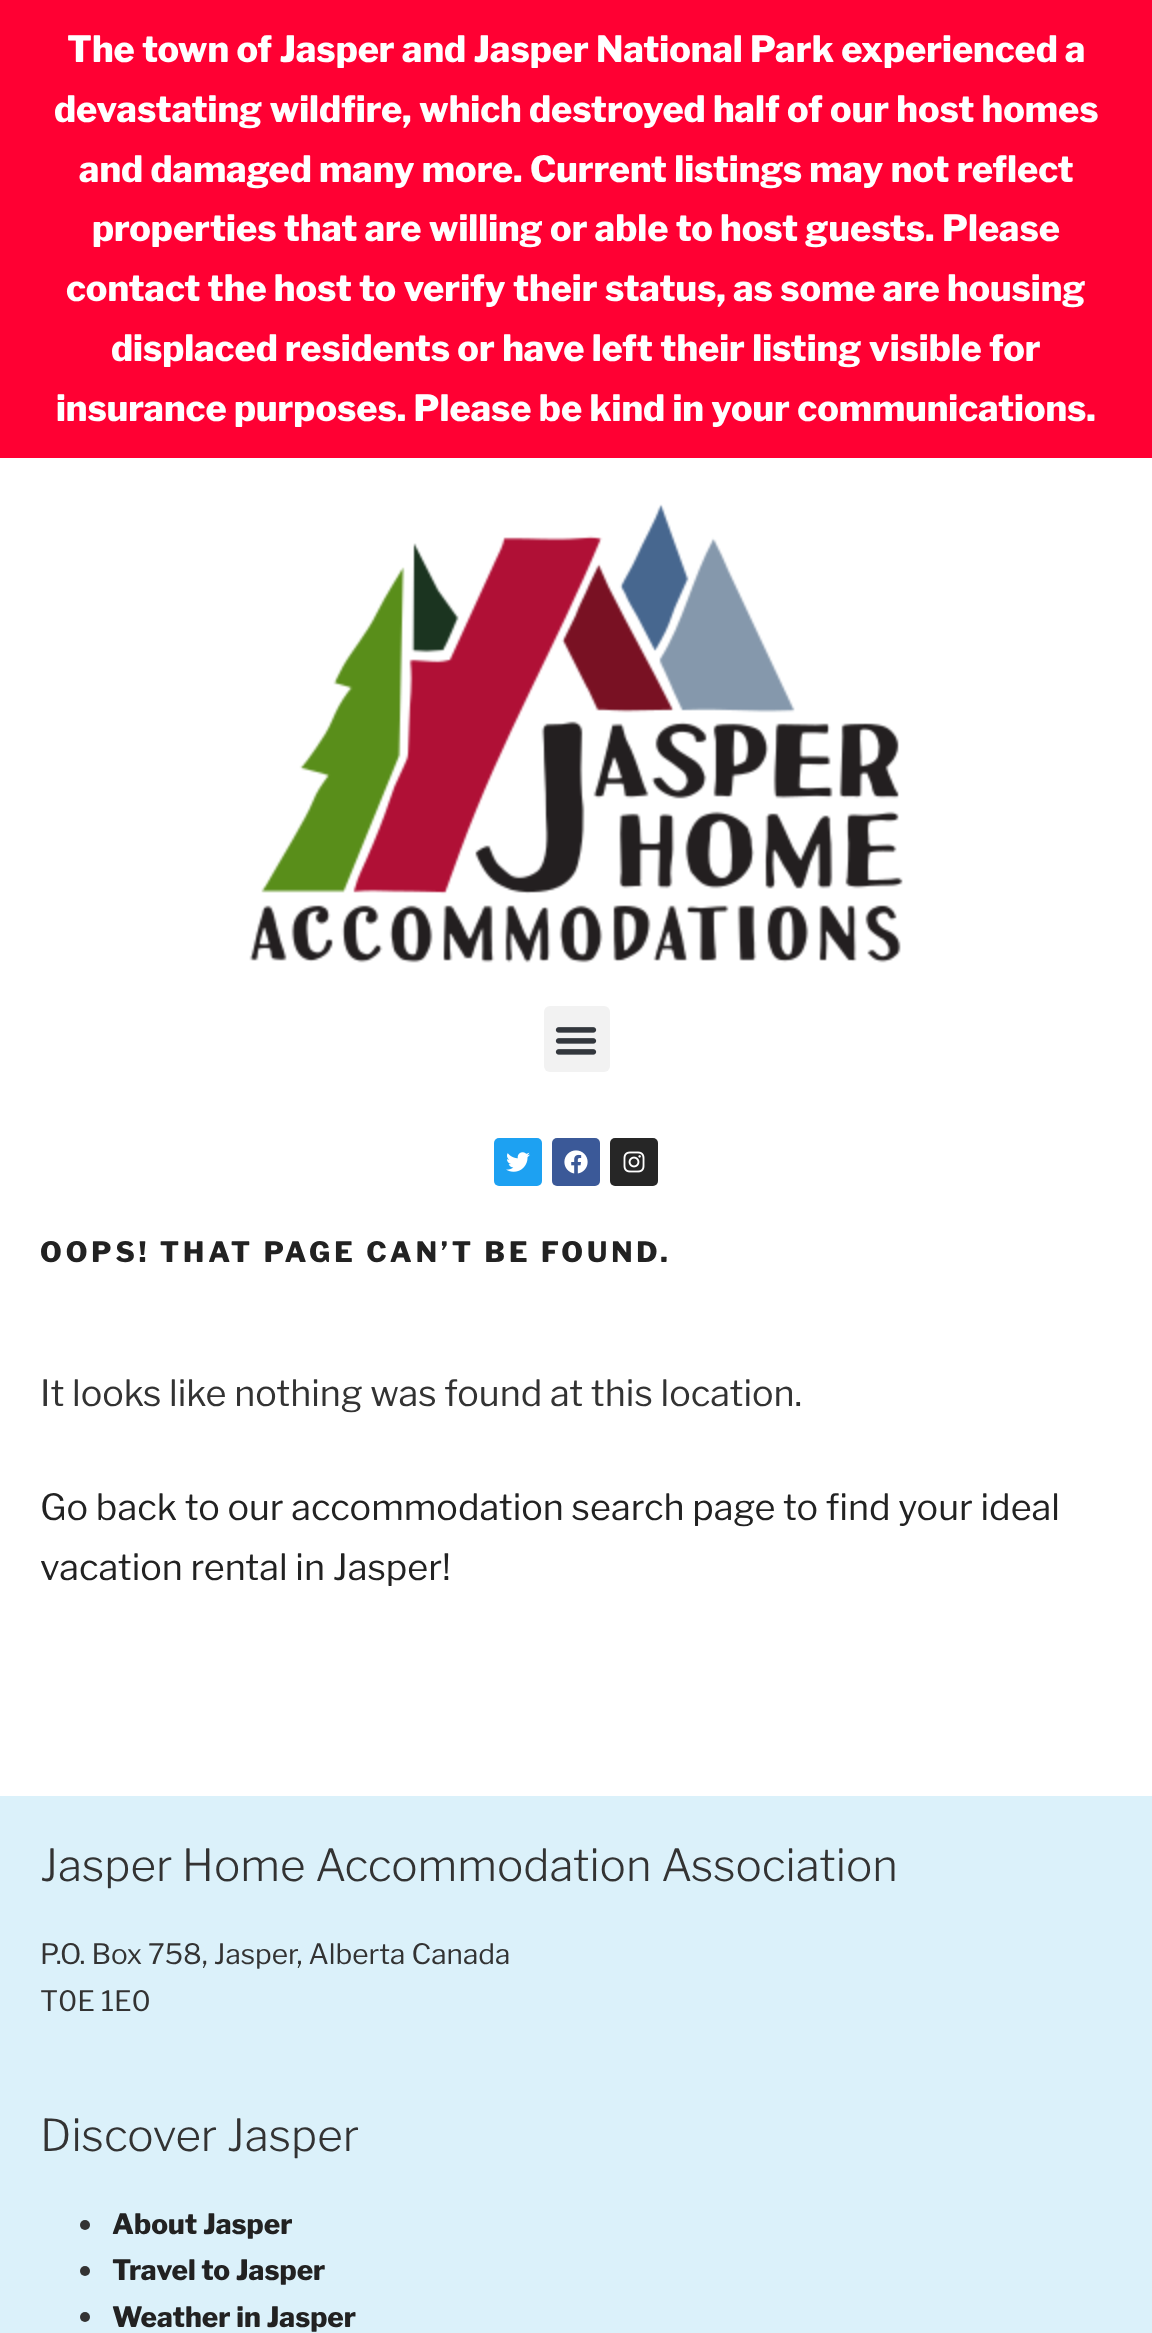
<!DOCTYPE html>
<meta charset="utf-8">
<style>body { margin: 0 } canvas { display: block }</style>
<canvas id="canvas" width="1152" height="2333"></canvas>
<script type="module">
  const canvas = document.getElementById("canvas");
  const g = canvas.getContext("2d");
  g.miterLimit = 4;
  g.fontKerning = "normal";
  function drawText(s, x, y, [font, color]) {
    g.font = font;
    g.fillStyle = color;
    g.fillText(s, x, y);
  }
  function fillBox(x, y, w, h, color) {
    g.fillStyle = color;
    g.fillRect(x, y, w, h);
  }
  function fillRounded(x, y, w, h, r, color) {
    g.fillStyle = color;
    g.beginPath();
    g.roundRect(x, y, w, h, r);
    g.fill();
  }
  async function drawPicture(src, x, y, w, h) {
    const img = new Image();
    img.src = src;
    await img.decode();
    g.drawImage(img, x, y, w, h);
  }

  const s1 = ["100 36px Libre Franklin", "#FFFFFF"];
  const s2 = ["100 28px Libre Franklin", "#222222"];
  const s3 = ["100 36px 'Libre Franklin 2'", "#333333"];
  const s4 = ["100 36px 'Libre Franklin 2'", "#222222"];
  const s5 = ["100 44px 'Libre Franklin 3'", "#333333"];
  const s6 = ["100 28px 'Libre Franklin 2'", "#333333"];

  fillBox(0, 0, 1152, 2333, "#FFFFFF");
  fillBox(0, 0, 1152, 458, "#FF0033");
  drawText("The town of Jasper and Jasper National Park experienced a", 67, 62, s1);
  drawText("devastating wildfire, which destroyed half of our host homes", 54, 122, s1);
  drawText("and damaged many more. Current listings may not reflect", 79, 182, s1);
  drawText("properties that are willing or able to host guests. Please", 92, 241, s1);
  drawText("contact the host to verify their status, as some are housing", 66, 301, s1);
  drawText("displaced residents or have left their listing visible for", 111, 361, s1);
  drawText("insurance purposes. Please be kind in your communications.", 56, 421, s1);
  await drawPicture("pic1.png", 249, 504, 654, 459);
  fillRounded(544, 1006, 66, 66, 6, "#F2F2F2");
  await drawPicture("pic2.png", 555, 1027, 42, 28);
  fillRounded(494, 1138, 48, 48, 5, "#1DA1F2");
  await drawPicture("pic3.png", 506, 1152, 24, 20);
  fillRounded(552, 1138, 48, 48, 5, "#3B5998");
  await drawPicture("pic4.png", 564, 1150, 24, 24);
  fillRounded(610, 1138, 48, 48, 5, "#262626");
  await drawPicture("pic5.png", 623, 1151, 22, 22);
  g.letterSpacing = "3.9px";
  drawText("OOPS! THAT PAGE CAN’T BE FOUND.", 40, 1262, s2);
  g.letterSpacing = "0px";
  drawText("It looks like nothing was found at this location.", 40, 1406, s3);
  drawText("Go back to our accommodation search page to find your ideal", 40, 1520, s4);
  drawText("vacation rental in Jasper!", 40, 1580, s4);
  fillBox(0, 1796, 1152, 537, "#DBF1FA");
  drawText("Jasper Home Accommodation Association", 40, 1881, s5);
  drawText("P.O. Box 758, Jasper, Alberta Canada", 40, 1964, s6);
  drawText("T0E 1E0", 40, 2011, s6);
  drawText("Discover Jasper", 40, 2151, s5);
  g.beginPath();
  g.arc(85, 2225, 5, 0, Math.PI * 2);
  g.fill();
  drawText("About Jasper", 112, 2234, s2);
  g.fillStyle = "#333333";
  g.beginPath();
  g.arc(85, 2271, 5, 0, Math.PI * 2);
  g.fill();
  drawText("Travel to Jasper", 112, 2280, s2);
  g.fillStyle = "#333333";
  g.beginPath();
  g.arc(85, 2317, 5, 0, Math.PI * 2);
  g.fill();
  drawText("Weather in Jasper", 112, 2327, s2);
</script>
